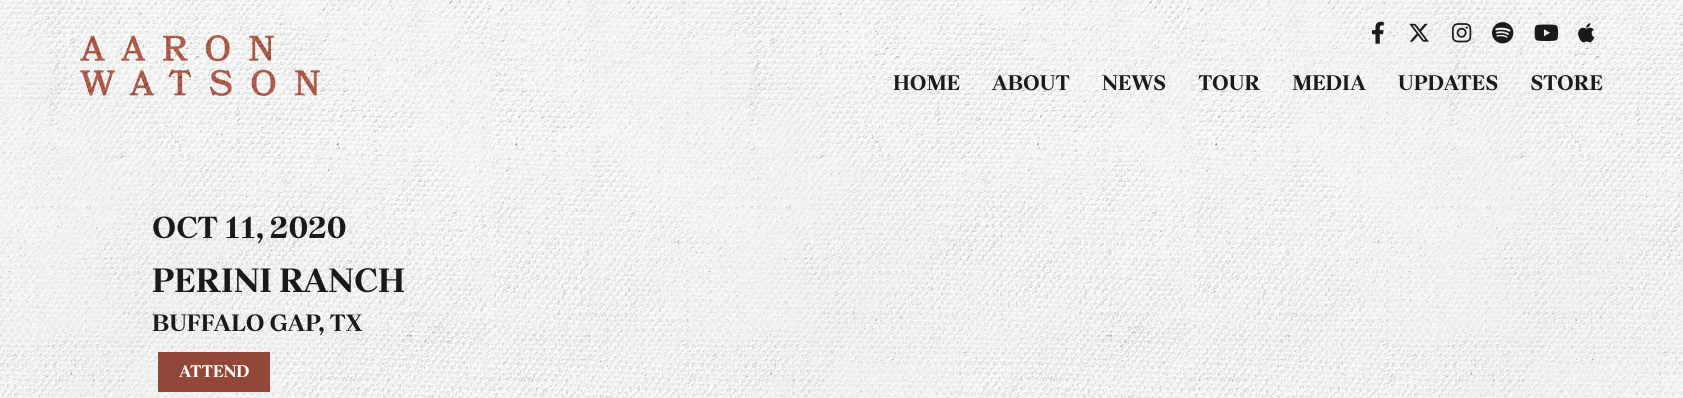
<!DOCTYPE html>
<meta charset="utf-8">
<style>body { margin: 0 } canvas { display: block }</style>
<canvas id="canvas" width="1683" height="398"></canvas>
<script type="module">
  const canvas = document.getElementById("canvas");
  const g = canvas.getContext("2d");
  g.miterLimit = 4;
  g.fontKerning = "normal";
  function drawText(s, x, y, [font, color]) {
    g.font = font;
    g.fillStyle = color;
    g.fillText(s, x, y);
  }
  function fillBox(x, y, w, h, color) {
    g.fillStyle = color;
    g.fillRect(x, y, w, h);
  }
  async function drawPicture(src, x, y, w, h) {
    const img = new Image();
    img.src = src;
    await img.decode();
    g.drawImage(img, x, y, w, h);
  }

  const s1 = ["bold 22px 'Brygada 1918'", "#1A1A1A"];
  const s2 = ["bold 31.75px 'Brygada 1918'", "#1A1A1A"];
  const s3 = ["bold 35.25px 'Brygada 1918'", "#1A1A1A"];
  const s4 = ["bold 24.75px 'Brygada 1918'", "#1A1A1A"];
  const s5 = ["bold 17.5px 'Brygada 1918'", "#FFFFFF"];

  fillBox(0, 0, 1683, 398, "#FFFFFF");
  await drawPicture("pic1.png", 0, 0, 1683, 398);
  await drawPicture("pic2.png", 80, 35, 240, 61);
  await drawPicture("pic3.png", 1372, 21, 12, 23);
  await drawPicture("pic4.png", 1409, 23, 20, 19);
  await drawPicture("pic5.png", 1452, 23, 20, 20);
  await drawPicture("pic6.png", 1492, 22, 22, 22);
  await drawPicture("pic7.png", 1534, 24, 25, 17);
  await drawPicture("pic8.png", 1578, 23, 17, 20);
  drawText("HOME", 893, 90, s1);
  drawText("ABOUT", 992, 90, s1);
  drawText("NEWS", 1102, 90, s1);
  drawText("TOUR", 1198, 90, s1);
  drawText("MEDIA", 1292, 90, s1);
  drawText("UPDATES", 1398, 90, s1);
  drawText("STORE", 1530, 90, s1);
  drawText("OCT 11, 2020", 152, 238, s2);
  drawText("PERINI RANCH", 152, 292, s3);
  drawText("BUFFALO GAP, TX", 152, 331, s4);
  fillBox(158, 352, 112, 40, "#934738");
  drawText("ATTEND", 179, 377, s5);
</script>
